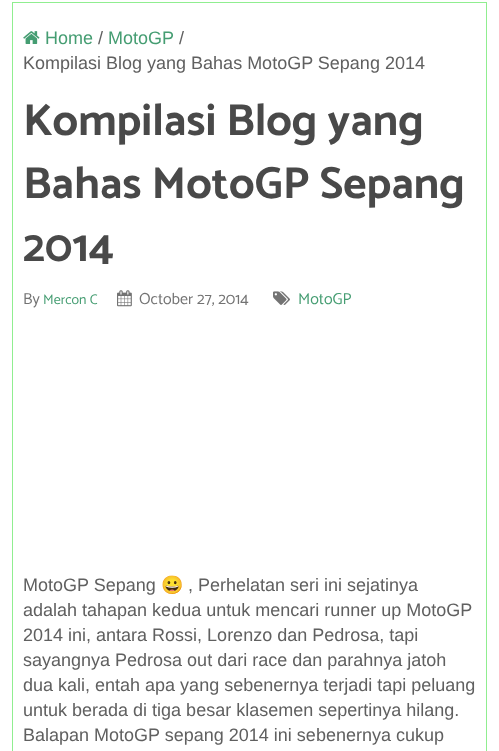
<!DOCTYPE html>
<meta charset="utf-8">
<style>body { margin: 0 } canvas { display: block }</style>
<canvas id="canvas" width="499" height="751"></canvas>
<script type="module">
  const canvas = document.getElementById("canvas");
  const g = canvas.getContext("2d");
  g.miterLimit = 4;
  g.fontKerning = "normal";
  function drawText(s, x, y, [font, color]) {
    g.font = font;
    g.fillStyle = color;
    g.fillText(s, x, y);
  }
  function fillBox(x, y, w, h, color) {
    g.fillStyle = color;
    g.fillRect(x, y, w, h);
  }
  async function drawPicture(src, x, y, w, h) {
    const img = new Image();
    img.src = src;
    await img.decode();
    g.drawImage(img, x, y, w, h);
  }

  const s1 = ["18px Liberation Sans", "#459D72"];
  const s2 = ["18px Liberation Sans", "#606060"];
  const s3 = ["bold 45px Catamaran", "#494949"];
  const s4 = ["16px Catamaran", "#737373"];
  const s5 = ["14px Catamaran", "#459D72"];
  const s6 = ["16px Catamaran", "#459D72"];
  const s7 = ["18px Noto Color Emoji", "#606060"];

  fillBox(0, 0, 499, 751, "#FFFFFF");
  g.strokeStyle = "#90EE90";
  g.strokeRect(12.5, 2.5, 474, 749);
  await drawPicture("pic1.png", 23, 31, 17, 13);
  drawText("Home", 45, 44, s1);
  drawText("/", 98, 44, s2);
  drawText("MotoGP", 108, 44, s1);
  drawText("/", 179, 44, s2);
  drawText("Kompilasi Blog yang Bahas MotoGP Sepang 2014", 23, 69, s2);
  drawText("Kompilasi Blog yang", 23, 135, s3);
  drawText("Bahas MotoGP Sepang", 23, 198, s3);
  drawText("2014", 23, 261, s3);
  drawText("By", 23, 304, s4);
  drawText("Mercon C", 43, 304, s5);
  await drawPicture("pic2.png", 117, 290, 15, 17);
  drawText("October 27, 2014", 139, 304, s4);
  await drawPicture("pic3.png", 273, 291, 17, 14);
  drawText("MotoGP", 298, 304, s6);
  drawText("MotoGP Sepang", 23, 591, s2);
  drawText("😀", 161, 591, s7);
  drawText(", Perhelatan seri ini sejatinya", 188, 591, s2);
  drawText("adalah tahapan kedua untuk mencari runner up MotoGP", 23, 616, s2);
  drawText("2014 ini, antara Rossi, Lorenzo dan Pedrosa, tapi", 23, 641, s2);
  drawText("sayangnya Pedrosa out dari race dan parahnya jatoh", 23, 666, s2);
  drawText("dua kali, entah apa yang sebenernya terjadi tapi peluang", 23, 691, s2);
  drawText("untuk berada di tiga besar klasemen sepertinya hilang.", 23, 716, s2);
  drawText("Balapan MotoGP sepang 2014 ini sebenernya cukup", 23, 741, s2);
</script>
